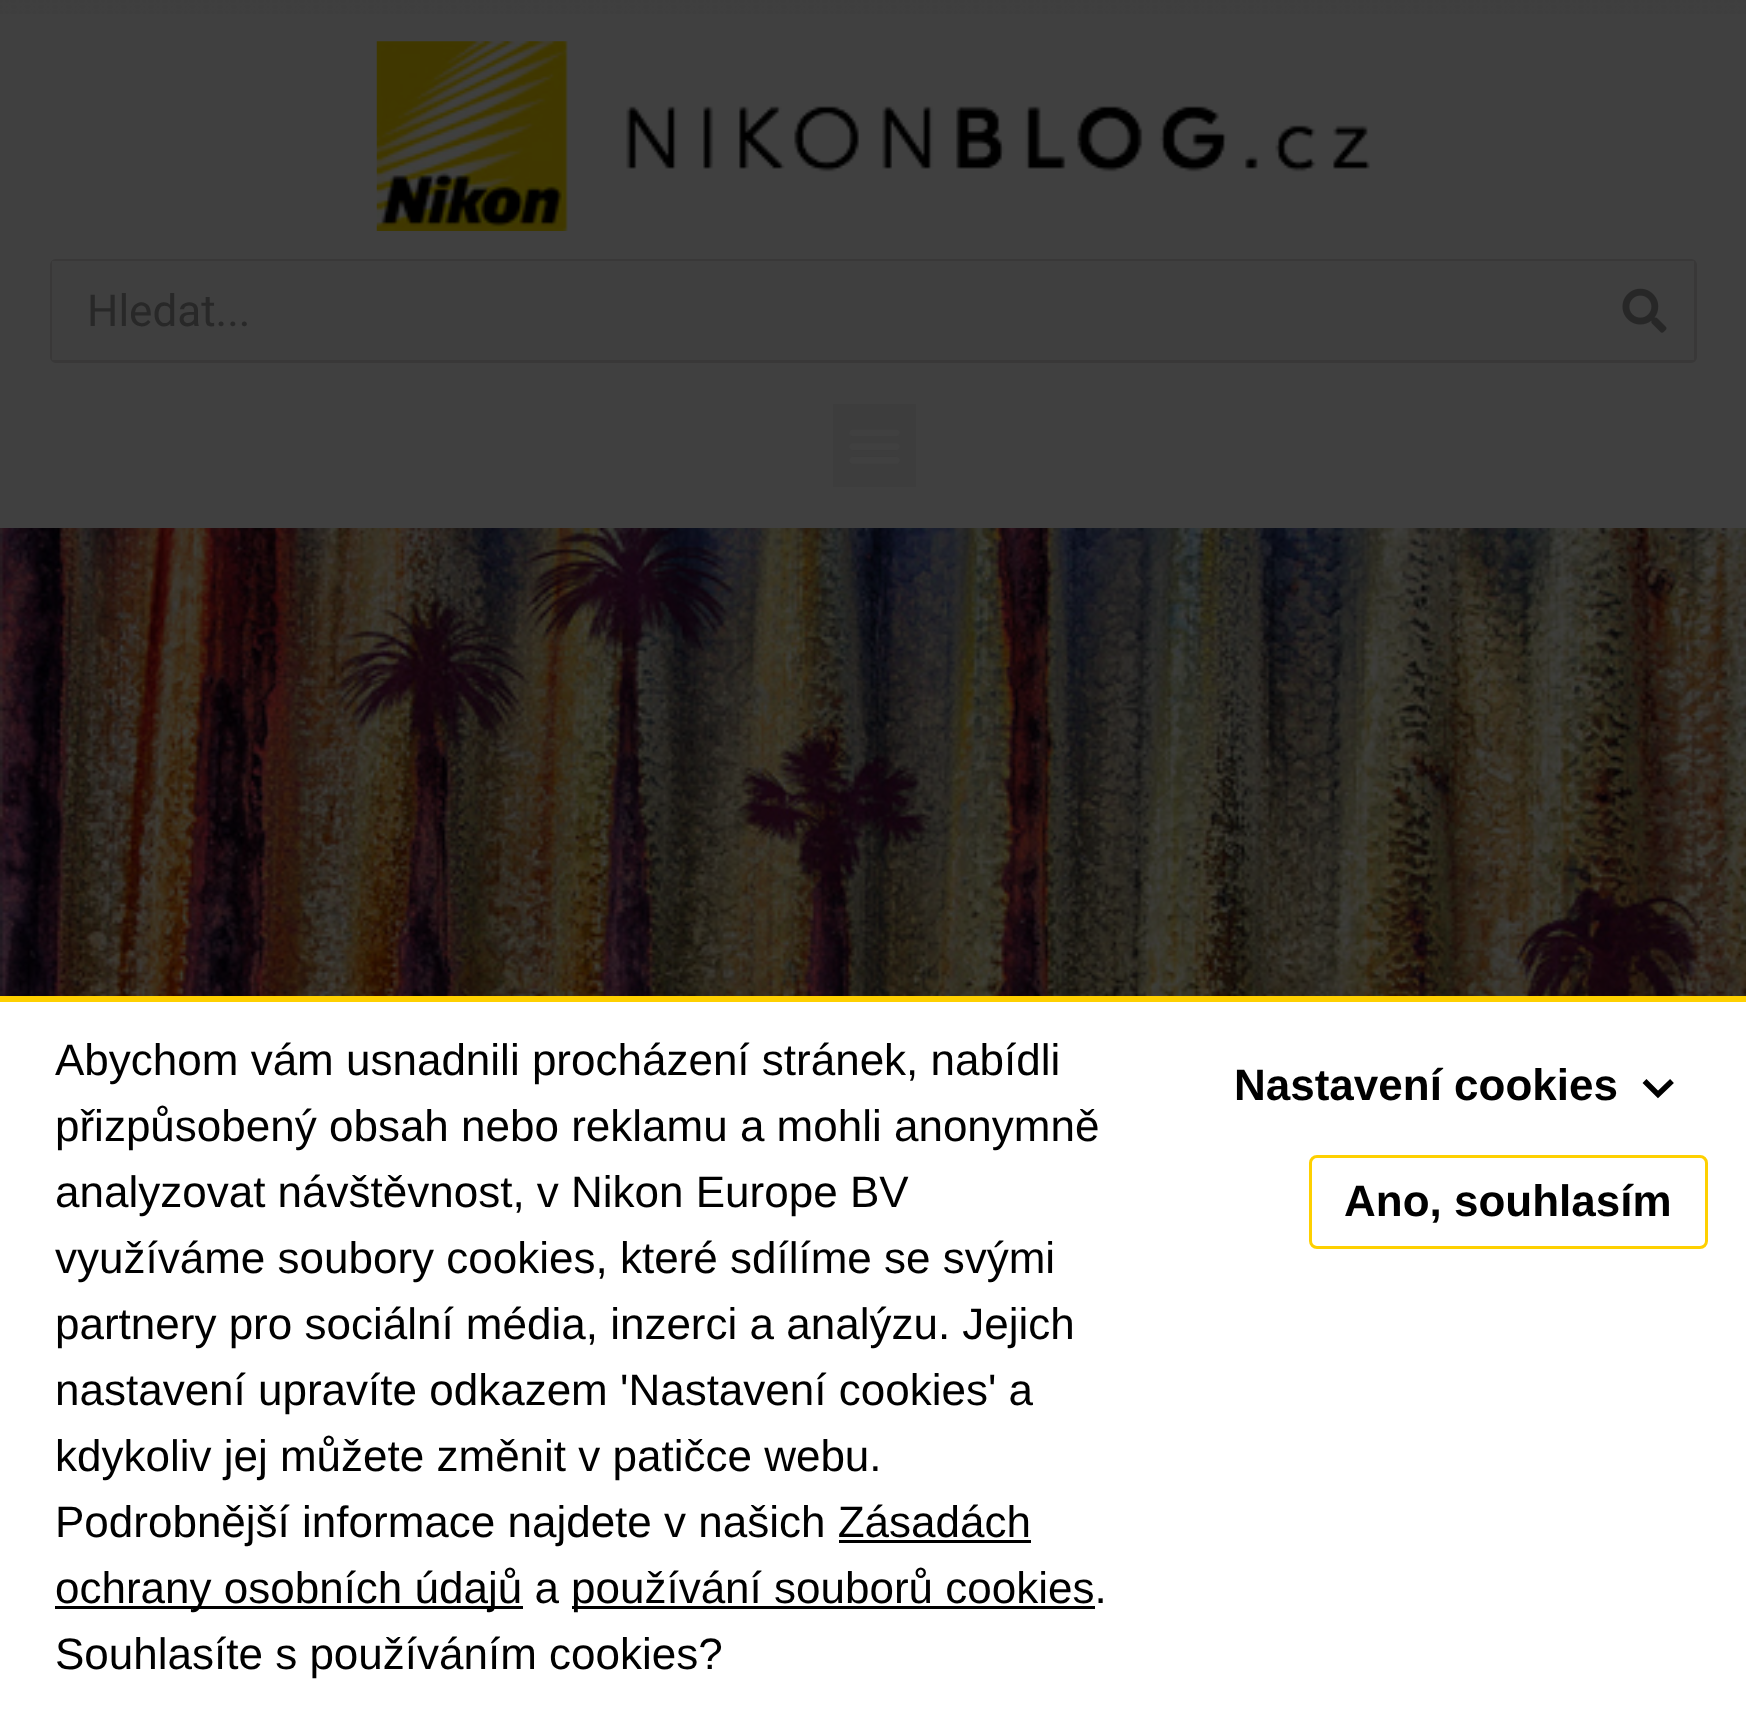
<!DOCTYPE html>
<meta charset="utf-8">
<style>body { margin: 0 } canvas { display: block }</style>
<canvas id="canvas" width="1746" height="1716"></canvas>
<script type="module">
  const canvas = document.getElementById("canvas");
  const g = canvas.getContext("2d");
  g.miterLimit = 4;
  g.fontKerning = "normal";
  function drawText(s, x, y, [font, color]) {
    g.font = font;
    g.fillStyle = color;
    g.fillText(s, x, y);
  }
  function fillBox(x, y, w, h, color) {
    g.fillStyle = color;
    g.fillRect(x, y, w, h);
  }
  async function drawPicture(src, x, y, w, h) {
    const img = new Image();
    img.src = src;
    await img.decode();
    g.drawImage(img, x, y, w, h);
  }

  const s1 = ["44px Roboto", "#282828"];
  const s2 = ["44px Liberation Sans", "#000000"];
  const s3 = ["bold 44px Liberation Sans", "#000000"];

  fillBox(0, 0, 1746, 1716, "#FFFFFF");
  fillBox(0, 0, 1746, 528, "#404040");
  await drawPicture("pic1.png", 0, 0, 1746, 14);
  await drawPicture("pic2.png", 376, 41, 994, 190);
  g.beginPath();
  g.roundRect(51.5, 260.5, 1644, 101, 4.5);
  g.strokeStyle = "#393838";
  g.lineWidth = 3;
  g.stroke();
  fillBox(52, 261, 1642, 99, "#3F3F3F");
  drawText("Hledat...", 87, 326, s1);
  await drawPicture("pic3.png", 1622, 288, 45, 45);
  fillBox(833, 404, 83, 83, "#3D3D3D");
  await drawPicture("pic4.png", 849, 429, 51, 35);
  await drawPicture("pic5.png", 0, 528, 1746, 468);
  fillBox(0, 996, 1746, 6, "#FED000");
  drawText("Abychom vám usnadnili procházení stránek, nabídli", 55, 1075, s2);
  drawText("přizpůsobený obsah nebo reklamu a mohli anonymně", 55, 1141, s2);
  drawText("analyzovat návštěvnost, v Nikon Europe BV", 55, 1207, s2);
  drawText("využíváme soubory cookies, které sdílíme se svými", 55, 1273, s2);
  drawText("partnery pro sociální média, inzerci a analýzu. Jejich", 55, 1339, s2);
  drawText("nastavení upravíte odkazem 'Nastavení cookies' a", 55, 1405, s2);
  drawText("kdykoliv jej můžete změnit v patičce webu.", 55, 1471, s2);
  drawText("Podrobnější informace najdete v našich Zásadách", 55, 1537, s2);
  fillBox(55, 1606, 468, 3, "#000000");
  drawText("ochrany osobních údajů a", 55, 1603, s2);
  fillBox(839, 1540, 192, 3, "#000000");
  fillBox(572, 1606, 523, 3, "#000000");
  drawText("používání souborů cookies.", 571, 1603, s2);
  drawText("Souhlasíte s používáním cookies?", 55, 1669, s2);
  drawText("Nastavení cookies", 1234, 1100, s3);
  g.beginPath();
  g.moveTo(1644.5, 1081);
  g.lineTo(1658, 1094.5);
  g.lineTo(1672, 1081);
  g.strokeStyle = "#000000";
  g.lineWidth = 5.5;
  g.stroke();
  g.beginPath();
  g.roundRect(1310.5, 1156.5, 396, 91, 6.5);
  g.strokeStyle = "#FED000";
  g.lineWidth = 3;
  g.stroke();
  drawText("Ano, souhlasím", 1344, 1216, s3);
</script>
